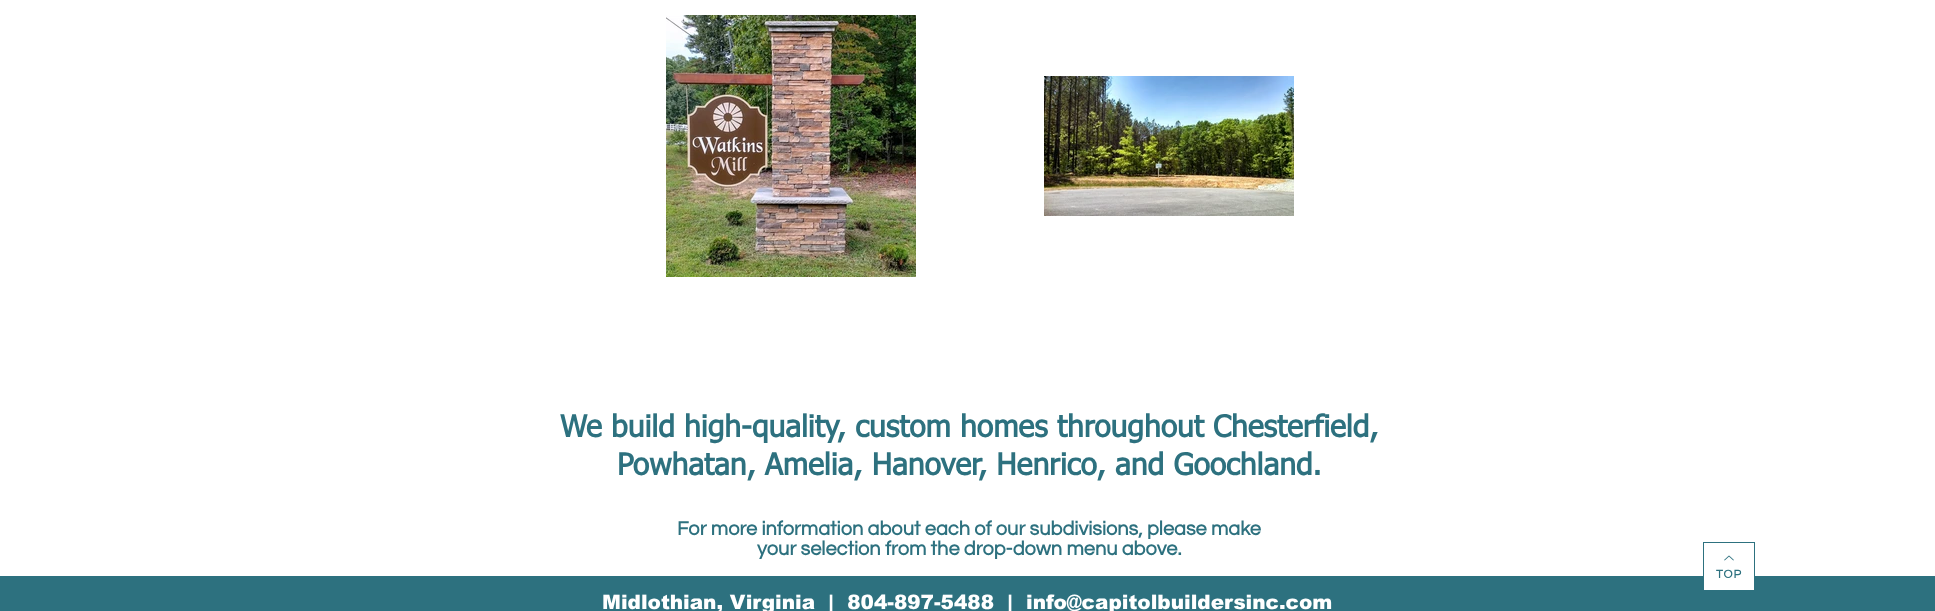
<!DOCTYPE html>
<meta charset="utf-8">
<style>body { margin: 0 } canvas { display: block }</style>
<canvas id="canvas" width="1935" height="611"></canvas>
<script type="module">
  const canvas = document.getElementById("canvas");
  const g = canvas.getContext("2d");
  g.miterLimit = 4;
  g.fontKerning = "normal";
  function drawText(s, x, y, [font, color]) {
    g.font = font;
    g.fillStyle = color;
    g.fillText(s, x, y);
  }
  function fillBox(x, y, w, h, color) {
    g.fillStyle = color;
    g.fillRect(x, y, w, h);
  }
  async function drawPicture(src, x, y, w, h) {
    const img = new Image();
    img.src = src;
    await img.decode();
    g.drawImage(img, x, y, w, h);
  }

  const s1 = ["bold 30px tahoma", "#2D717F"];
  const s2 = ["bold 20px Questrial", "#2D717F"];
  const s3 = ["bold 12px Questrial", "#2D717F"];
  const s4 = ["900 20px arial", "#FFFFFF"];

  fillBox(0, 0, 1935, 611, "#FFFFFF");
  await drawPicture("pic1.png", 666, 15, 250, 262);
  await drawPicture("pic2.png", 1044, 76, 250, 140);
  drawText("We build high-quality, custom homes throughout Chesterfield,", 560, 437, s1);
  drawText("Powhatan, Amelia, Hanover, Henrico, and Goochland.", 617, 475, s1);
  drawText("For more information about each of our subdivisions, please make", 677, 535, s2);
  drawText("your selection from the drop-down menu above.", 757, 555, s2);
  fillBox(0, 576, 1935, 35, "#2D717F");
  fillBox(1704, 576, 50, 14, "#FFFFFF");
  g.strokeStyle = "#2D717F";
  g.strokeRect(1703.5, 542.5, 51, 48);
  await drawPicture("pic3.png", 1724, 555, 10, 6);
  g.letterSpacing = "1px";
  drawText("TOP", 1716, 578, s3);
  g.letterSpacing = "0px";
  drawText("Midlothian, Virginia  |  804-897-5488  |", 602, 609, s4);
  drawText("info@capitolbuildersinc.com", 1026, 609, s4);
</script>
